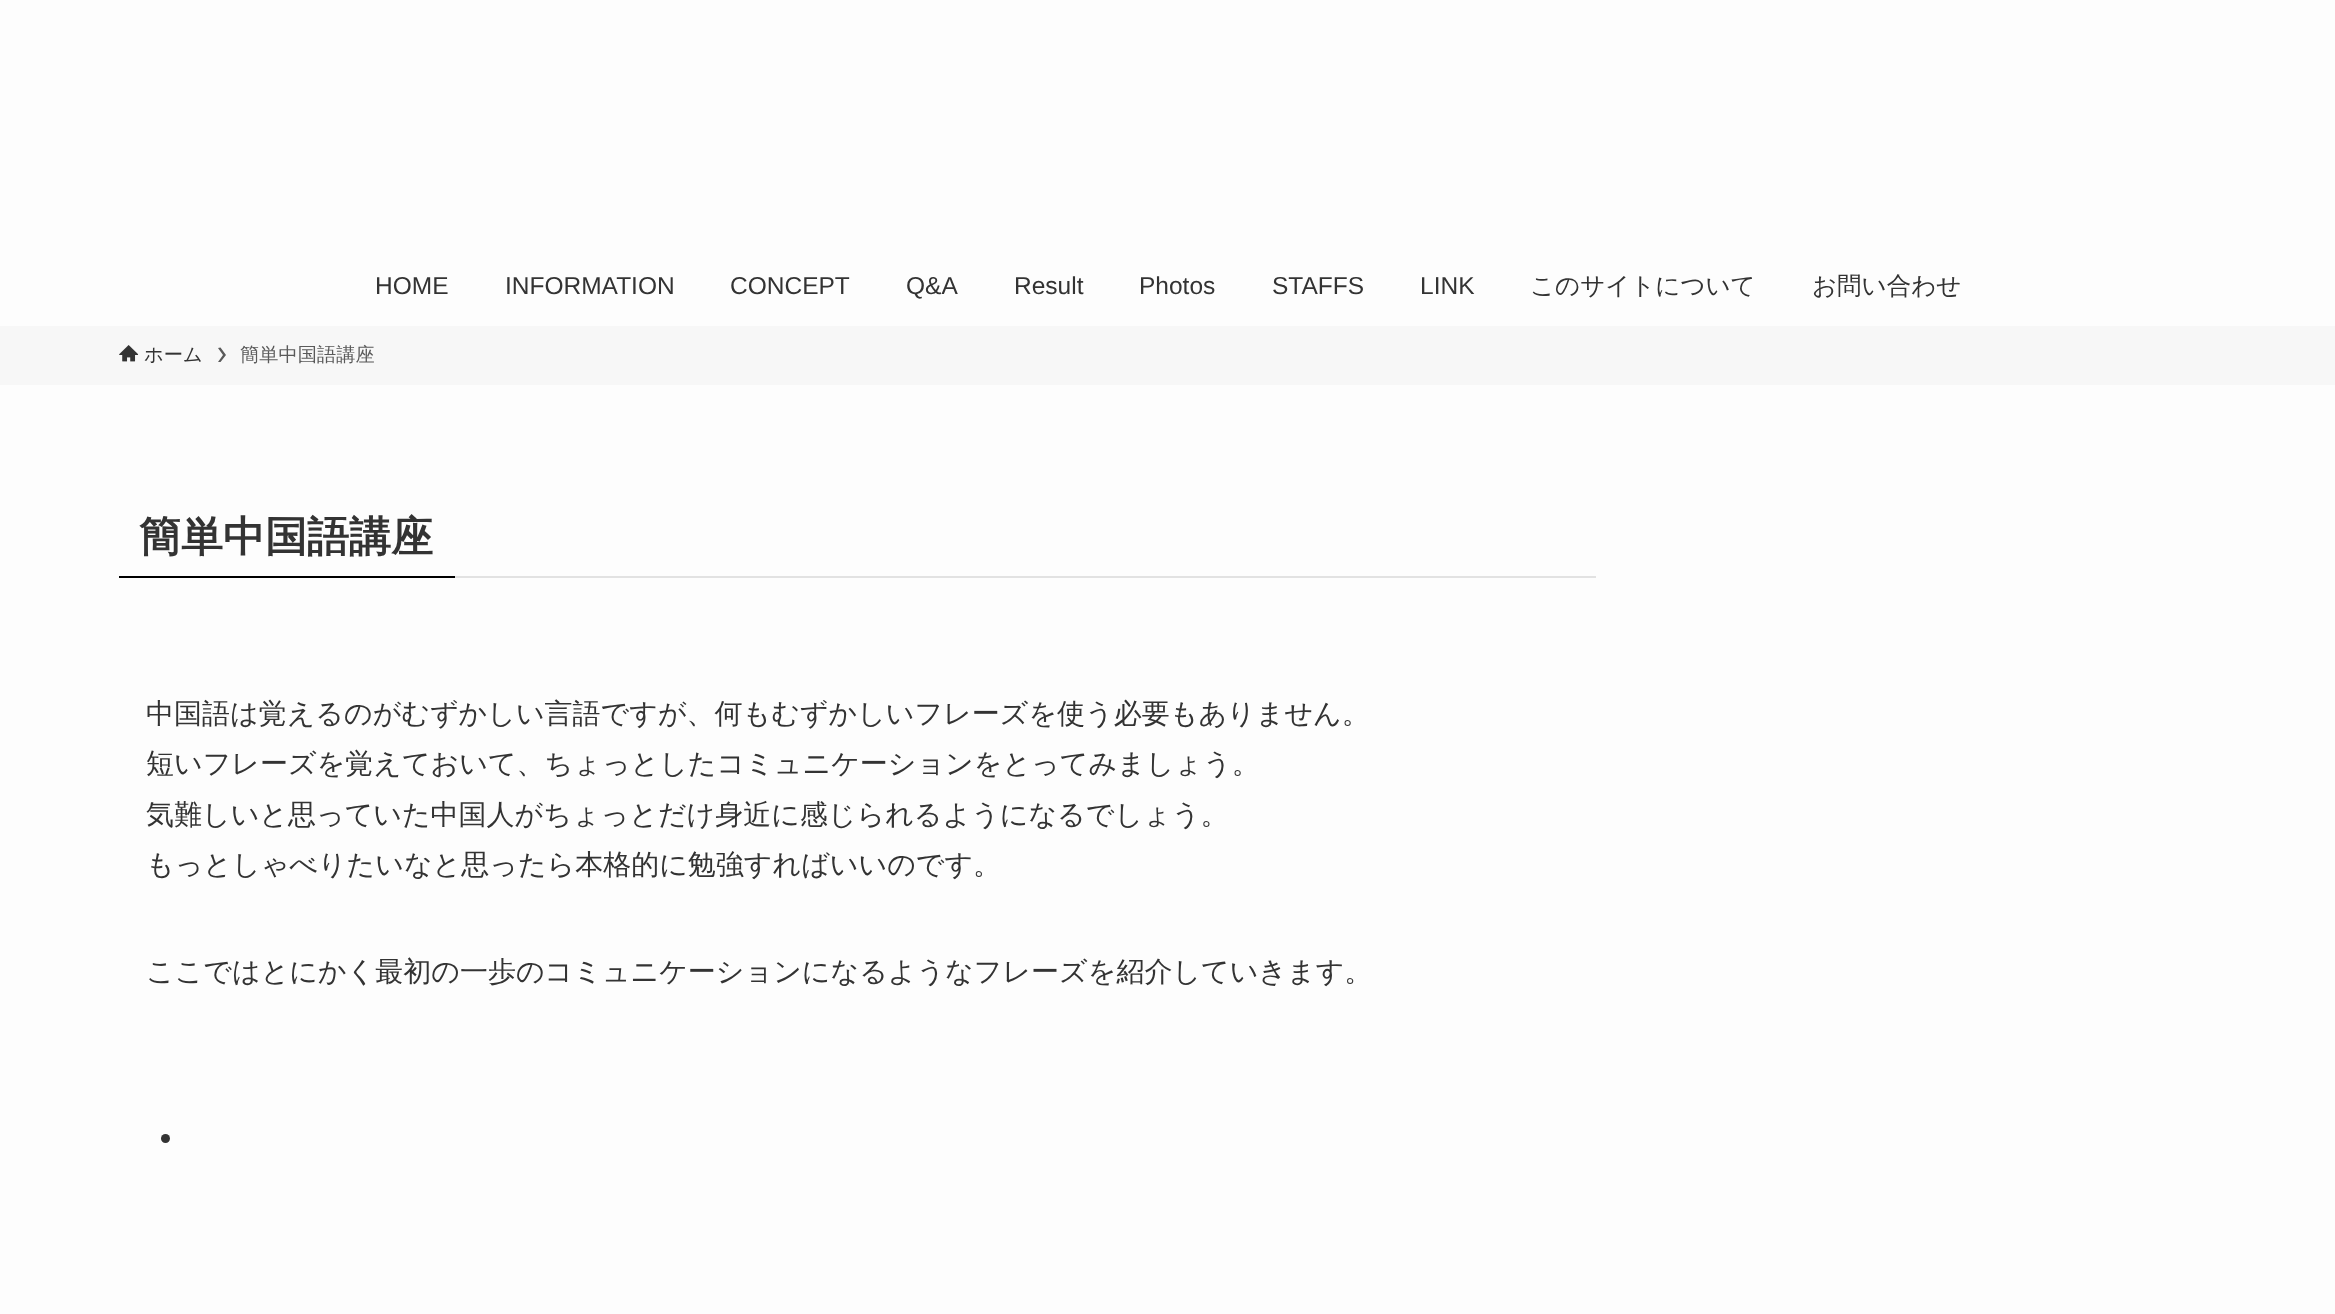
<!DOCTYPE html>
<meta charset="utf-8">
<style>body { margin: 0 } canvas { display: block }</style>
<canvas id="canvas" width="2335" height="1314"></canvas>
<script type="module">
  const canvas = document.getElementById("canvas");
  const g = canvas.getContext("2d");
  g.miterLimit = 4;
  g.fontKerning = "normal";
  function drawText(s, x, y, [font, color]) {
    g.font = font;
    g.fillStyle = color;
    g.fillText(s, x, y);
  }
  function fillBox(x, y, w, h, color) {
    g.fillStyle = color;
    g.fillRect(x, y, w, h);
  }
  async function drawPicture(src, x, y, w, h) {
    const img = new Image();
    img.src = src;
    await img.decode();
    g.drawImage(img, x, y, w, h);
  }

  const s1 = ["24.5px Liberation Sans", "#333333"];
  const s2 = ["500 24.5px WenQuanYi Zen Hei", "#333333"];
  const s3 = ["500 19.25px WenQuanYi Zen Hei", "#333333"];
  const s4 = ["500 19.25px WenQuanYi Zen Hei", "#5A5A5A"];
  const s5 = ["bold 42px WenQuanYi Zen Hei", "#333333"];
  const s6 = ["500 28px WenQuanYi Zen Hei", "#333333"];

  fillBox(0, 0, 2335, 1314, "#FDFDFD");
  drawText("HOME", 375, 294, s1);
  drawText("INFORMATION", 505, 294, s1);
  drawText("CONCEPT", 730, 294, s1);
  drawText("Q&A", 906, 294, s1);
  drawText("Result", 1014, 294, s1);
  drawText("Photos", 1139, 294, s1);
  drawText("STAFFS", 1272, 294, s1);
  drawText("LINK", 1420, 294, s1);
  drawText("このサイトについて", 1530, 294, s2);
  drawText("お問い合わせ", 1812, 294, s2);
  fillBox(0, 326, 2335, 59, "#F7F7F7");
  await drawPicture("pic1.png", 119, 345, 20, 17);
  drawText("ホーム", 144, 361, s3);
  g.fillStyle = "#5A5A5A";
  g.beginPath();
  g.moveTo(220.5, 347.5);
  g.lineTo(218, 348);
  g.lineTo(223, 355);
  g.lineTo(218, 362);
  g.lineTo(220.5, 362);
  g.lineTo(226, 355);
  g.closePath();
  g.fill();
  drawText("簡単中国語講座", 240, 361, s4);
  fillBox(455, 576, 1141, 2, "#E2E2E2");
  fillBox(119, 576, 336, 2, "#000000");
  drawText("簡単中国語講座", 139, 551, s5);
  drawText("中国語は覚えるのがむずかしい言語ですが、何もむずかしいフレーズを使う必要もありません。", 146, 723, s6);
  drawText("短いフレーズを覚えておいて、ちょっとしたコミュニケーションをとってみましょう。", 146, 773, s6);
  drawText("気難しいと思っていた中国人がちょっとだけ身近に感じられるようになるでしょう。", 146, 824, s6);
  drawText("もっとしゃべりたいなと思ったら本格的に勉強すればいいのです。", 146, 874, s6);
  drawText("ここではとにかく最初の一歩のコミュニケーションになるようなフレーズを紹介していきます。", 146, 981, s6);
  g.beginPath();
  g.arc(165.5, 1138.5, 4.5, 0, Math.PI * 2);
  g.fill();
</script>
